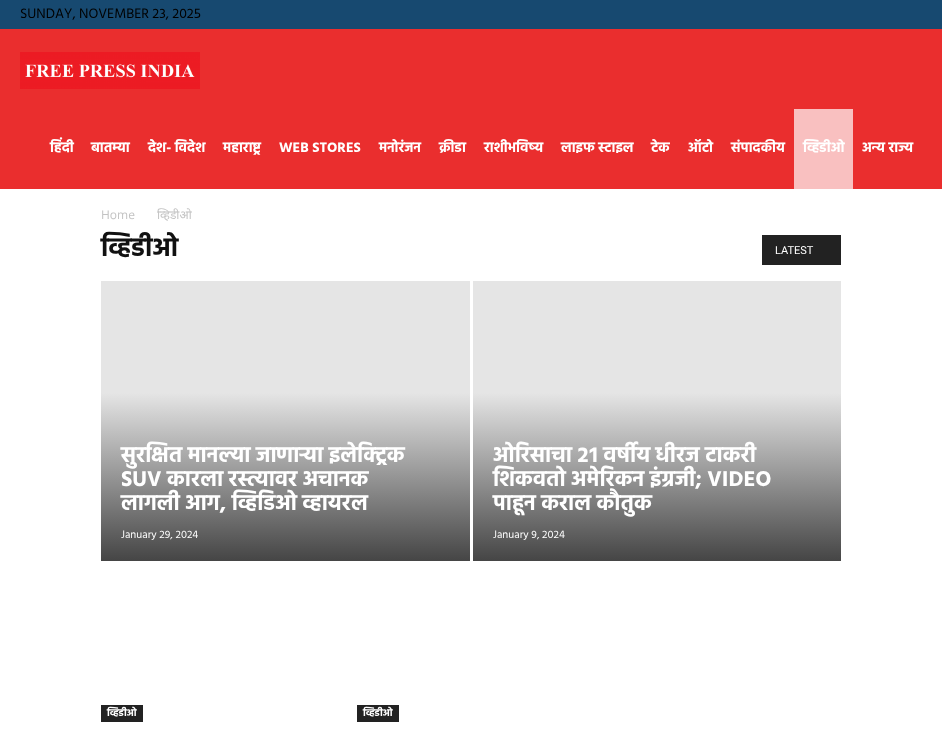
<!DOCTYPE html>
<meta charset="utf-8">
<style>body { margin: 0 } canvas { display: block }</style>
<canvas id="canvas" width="942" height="732"></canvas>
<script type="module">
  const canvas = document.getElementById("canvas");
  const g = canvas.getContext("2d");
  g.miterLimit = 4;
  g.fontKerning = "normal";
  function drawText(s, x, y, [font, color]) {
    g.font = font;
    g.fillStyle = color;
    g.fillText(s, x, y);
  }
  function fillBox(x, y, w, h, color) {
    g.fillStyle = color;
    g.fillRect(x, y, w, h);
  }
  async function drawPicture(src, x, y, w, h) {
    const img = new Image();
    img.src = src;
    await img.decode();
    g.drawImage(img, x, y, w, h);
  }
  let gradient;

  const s1 = ["14px Hind", "#000000"];
  const s2 = ["bold 14px Hind", "#FFFFFF"];
  const s3 = ["12px Open Sans", "#C3C3C3"];
  const s4 = ["12px Noto Sans", "#C3C3C3"];
  const s5 = ["bold 26px Hind", "#111111"];
  const s6 = ["11px Roboto", "#FFFFFF"];
  const s7 = ["bold 22px Hind", "#FFFFFF"];
  const s8 = ["11px Hind", "#FFFFFF"];
  const s9 = ["bold 10px Hind", "#FFFFFF"];

  fillBox(0, 0, 942, 732, "#FFFFFF");
  fillBox(0, 0, 942, 29, "#174970");
  drawText("SUNDAY, NOVEMBER 23, 2025", 20, 18, s1);
  fillBox(0, 29, 942, 160, "#EA2E2E");
  await drawPicture("pic1.png", 20, 52, 180, 37);
  drawText("हिंदी", 50, 152, s2);
  drawText("बातम्या", 91, 152, s2);
  drawText("देश- विदेश", 148, 152, s2);
  drawText("महाराष्ट्र", 223, 152, s2);
  drawText("WEB STORES", 279, 152, s2);
  drawText("मनोरंजन", 379, 152, s2);
  drawText("क्रीडा", 439, 152, s2);
  drawText("राशीभविष्य", 484, 152, s2);
  drawText("लाइफ स्टाइल", 561, 152, s2);
  drawText("टेक", 651, 152, s2);
  drawText("ऑटो", 688, 152, s2);
  drawText("संपादकीय", 731, 152, s2);
  fillBox(794, 109, 59, 80, "#F9C0C0");
  drawText("व्हिडीओ", 803, 152, s2);
  drawText("अन्य राज्य", 862, 152, s2);
  drawText("Home", 101, 219, s3);
  drawText("व्हिडीओ", 157, 219, s4);
  drawText("व्हिडीओ", 101, 256, s5);
  fillBox(762, 235, 79, 30, "#222222");
  drawText("LATEST", 775, 254, s6);
  gradient = g.createLinearGradient(286, 281, 286, 561);
  gradient.addColorStop(0.4, "#E5E5E5");
  gradient.addColorStop(1, "#454545");
  g.fillStyle = gradient;
  g.fillRect(101, 281, 369, 280);
  drawText("सुरक्षित मानल्या जाणाऱ्या इलेक्ट्रिक", 121, 462, s7);
  drawText("SUV कारला रस्त्यावर अचानक", 121, 486, s7);
  drawText("लागली आग, व्हिडिओ व्हायरल", 121, 510, s7);
  drawText("January 29, 2024", 121, 538, s8);
  gradient = g.createLinearGradient(657, 281, 657, 561);
  gradient.addColorStop(0.4, "#E5E5E5");
  gradient.addColorStop(1, "#454545");
  g.fillStyle = gradient;
  g.fillRect(473, 281, 368, 280);
  drawText("ओरिसाचा २१ वर्षीय धीरज टाकरी", 493, 462, s7);
  drawText("शिकवतो अमेरिकन इंग्रजी; VIDEO", 493, 486, s7);
  drawText("पाहून कराल कौतुक", 493, 510, s7);
  drawText("January 9, 2024", 493, 538, s8);
  fillBox(101, 705, 42, 17, "#222222");
  drawText("व्हिडीओ", 107, 716, s9);
  fillBox(357, 705, 42, 17, "#222222");
  drawText("व्हिडीओ", 363, 716, s9);
</script>
